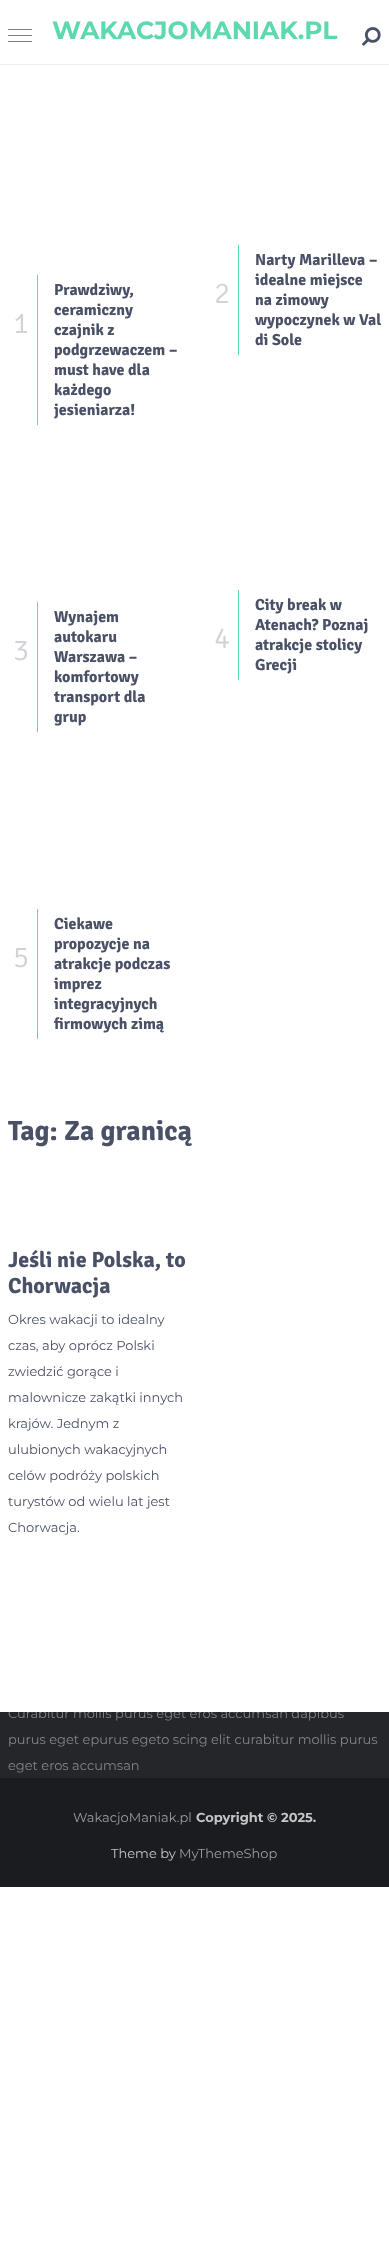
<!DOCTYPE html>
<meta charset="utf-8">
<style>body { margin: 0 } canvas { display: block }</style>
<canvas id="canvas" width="389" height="2264"></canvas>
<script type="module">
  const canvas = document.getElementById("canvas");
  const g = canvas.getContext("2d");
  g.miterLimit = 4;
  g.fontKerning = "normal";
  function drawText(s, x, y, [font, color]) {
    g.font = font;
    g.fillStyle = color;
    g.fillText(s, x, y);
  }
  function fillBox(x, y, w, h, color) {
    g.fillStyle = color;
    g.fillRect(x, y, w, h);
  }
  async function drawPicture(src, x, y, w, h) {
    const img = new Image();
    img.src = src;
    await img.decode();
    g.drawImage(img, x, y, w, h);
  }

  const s1 = ["bold 25px Montserrat", "#5DD9AF"];
  const s2 = ["300 30px Signika", "#D2D3D9"];
  const s3 = ["bold 16px Signika", "#4A5166"];
  const s4 = ["bold 28px Signika", "#4A5166"];
  const s5 = ["bold 22px Signika", "#4A5166"];
  const s6 = ["13px Montserrat", "#4A5166"];
  const s7 = ["13px Montserrat", "#848588"];
  const s8 = ["13px Montserrat", "#9B9C9D"];
  const s9 = ["bold 13px Montserrat", "#C6C6C7"];
  const s10 = ["13px Montserrat", "#C6C6C7"];

  fillBox(0, 0, 389, 2264, "#FFFFFF");
  fillBox(0, 64, 389, 1, "#EDEDEF");
  fillBox(8, 29, 24, 1, "#7F7F7F");
  fillBox(8, 35, 24, 1, "#7F7F7F");
  fillBox(8, 41, 24, 1, "#7F7F7F");
  drawText("WAKACJOMANIAK.PL", 52, 39, s1);
  await drawPicture("pic1.png", 362, 27, 19, 19);
  drawText("1", 13, 333, s2);
  fillBox(37, 275, 1, 150, "#5DD9AF");
  drawText("Prawdziwy,", 54, 295, s3);
  drawText("ceramiczny", 54, 315, s3);
  drawText("czajnik z", 54, 335, s3);
  drawText("podgrzewaczem –", 54, 355, s3);
  drawText("must have dla", 54, 375, s3);
  drawText("każdego", 54, 395, s3);
  drawText("jesieniarza!", 54, 415, s3);
  drawText("2", 214, 303, s2);
  fillBox(238, 245, 1, 110, "#5DD9AF");
  drawText("Narty Marilleva –", 255, 265, s3);
  drawText("idealne miejsce", 255, 285, s3);
  drawText("na zimowy", 255, 305, s3);
  drawText("wypoczynek w Val", 255, 325, s3);
  drawText("di Sole", 255, 345, s3);
  drawText("3", 13, 660, s2);
  fillBox(37, 602, 1, 130, "#5DD9AF");
  drawText("Wynajem", 54, 622, s3);
  drawText("autokaru", 54, 642, s3);
  drawText("Warszawa –", 54, 662, s3);
  drawText("komfortowy", 54, 682, s3);
  drawText("transport dla", 54, 702, s3);
  drawText("grup", 54, 722, s3);
  drawText("4", 214, 648, s2);
  fillBox(238, 590, 1, 90, "#5DD9AF");
  drawText("City break w", 255, 610, s3);
  drawText("Atenach? Poznaj", 255, 630, s3);
  drawText("atrakcje stolicy", 255, 650, s3);
  drawText("Grecji", 255, 670, s3);
  drawText("5", 13, 967, s2);
  fillBox(37, 909, 1, 130, "#5DD9AF");
  drawText("Ciekawe", 54, 929, s3);
  drawText("propozycje na", 54, 949, s3);
  drawText("atrakcje podczas", 54, 969, s3);
  drawText("imprez", 54, 989, s3);
  drawText("integracyjnych", 54, 1009, s3);
  drawText("firmowych zimą", 54, 1029, s3);
  drawText("Tag: Za granicą", 8, 1140, s4);
  drawText("Jeśli nie Polska, to", 8, 1267, s5);
  drawText("Chorwacja", 8, 1293, s5);
  drawText("Okres wakacji to idealny", 8, 1324, s6);
  drawText("czas, aby oprócz Polski", 8, 1350, s6);
  drawText("zwiedzić gorące i", 8, 1376, s6);
  drawText("malownicze zakątki innych", 8, 1402, s6);
  drawText("krajów. Jednym z", 8, 1428, s6);
  drawText("ulubionych wakacyjnych", 8, 1454, s6);
  drawText("celów podróży polskich", 8, 1480, s6);
  drawText("turystów od wielu lat jest", 8, 1506, s6);
  drawText("Chorwacja.", 8, 1532, s6);
  fillBox(0, 1712, 389, 66, "#24262A");
  g.save();
  g.beginPath();
  g.rect(0, 1712, 389, 175);
  g.clip();
  drawText("Curabitur mollis purus eget eros accumsan dapibus", 8, 1718, s7);
  g.restore();
  drawText("purus eget epurus egeto scing elit curabitur mollis purus", 8, 1744, s7);
  drawText("eget eros accumsan", 8, 1770, s7);
  fillBox(0, 1778, 389, 109, "#1B1C1F");
  drawText("WakacjoManiak.pl", 73, 1822, s8);
  drawText("Copyright © 2025.", 196, 1822, s9);
  drawText("Theme by", 111, 1858, s10);
  drawText("MyThemeShop", 179, 1858, s8);
</script>
